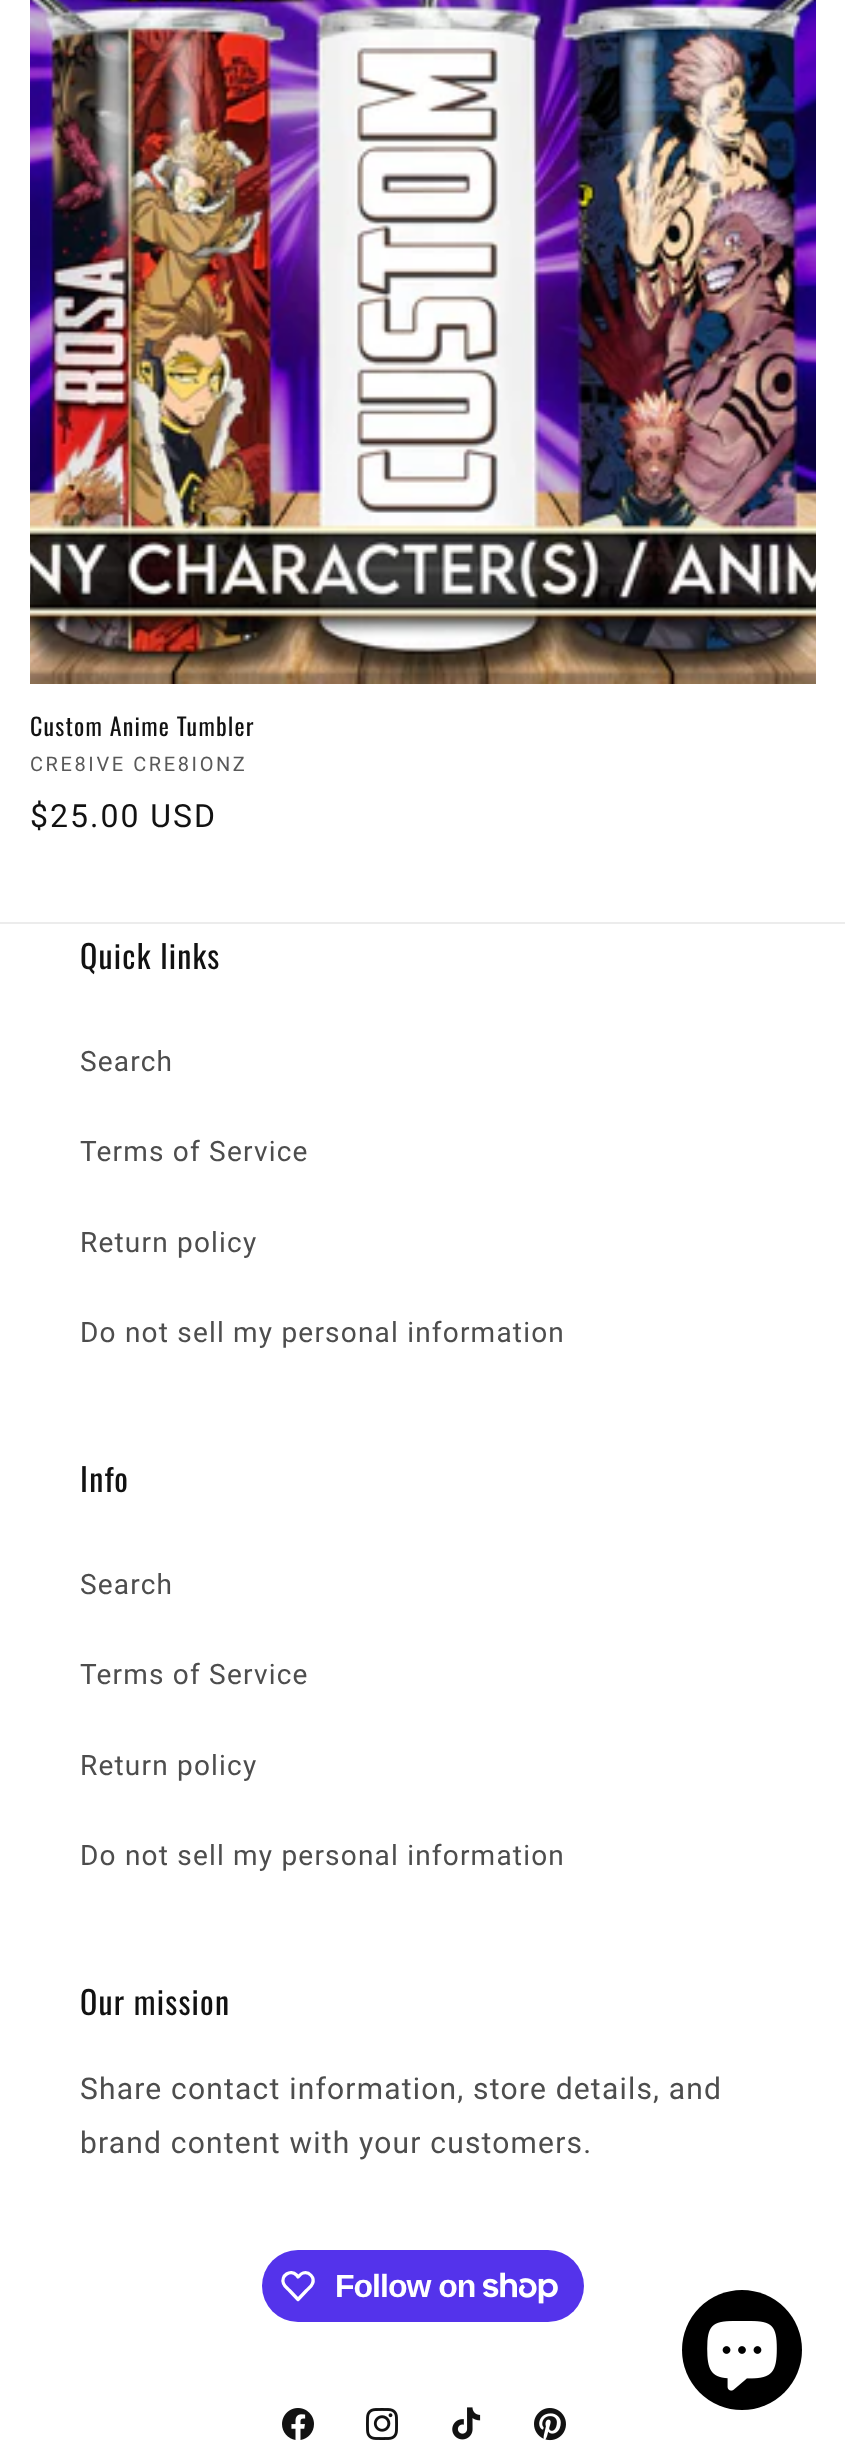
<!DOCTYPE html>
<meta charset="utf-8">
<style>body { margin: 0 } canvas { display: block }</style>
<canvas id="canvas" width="845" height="2452"></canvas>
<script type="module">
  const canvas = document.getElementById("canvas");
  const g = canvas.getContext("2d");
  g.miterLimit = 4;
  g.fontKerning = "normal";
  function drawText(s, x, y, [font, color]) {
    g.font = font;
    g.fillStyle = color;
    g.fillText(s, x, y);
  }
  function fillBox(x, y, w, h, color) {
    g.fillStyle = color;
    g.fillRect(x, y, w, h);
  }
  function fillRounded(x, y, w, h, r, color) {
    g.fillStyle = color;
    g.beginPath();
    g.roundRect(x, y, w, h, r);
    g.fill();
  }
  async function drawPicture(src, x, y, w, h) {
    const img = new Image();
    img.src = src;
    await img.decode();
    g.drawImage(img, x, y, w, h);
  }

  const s1 = ["24px Oswald", "#121212"];
  const s2 = ["20px Roboto", "#595959"];
  const s3 = ["32px Roboto", "#121212"];
  const s4 = ["32px Oswald", "#121212"];
  const s5 = ["28px Roboto", "#4D4D4D"];
  const s6 = ["30px Roboto", "#4D4D4D"];
  const s7 = ["bold 32px Liberation Sans", "#FFFFFF"];

  fillBox(0, 0, 845, 2452, "#FFFFFF");
  await drawPicture("pic1.png", 30, 0, 786, 684);
  g.letterSpacing = "1.2px";
  drawText("Custom Anime Tumbler", 30, 736, s1);
  g.letterSpacing = "2.6px";
  drawText("CRE8IVE CRE8IONZ", 30, 771, s2);
  g.letterSpacing = "2px";
  drawText("$25.00 USD", 30, 827, s3);
  fillBox(0, 922, 845, 2, "#ECECEC");
  g.letterSpacing = "1.2px";
  drawText("Quick links", 80, 969, s4);
  drawText("Search", 80, 1071, s5);
  drawText("Terms of Service", 80, 1161, s5);
  drawText("Return policy", 80, 1252, s5);
  drawText("Do not sell my personal information", 80, 1342, s5);
  drawText("Info", 80, 1492, s4);
  drawText("Search", 80, 1594, s5);
  drawText("Terms of Service", 80, 1684, s5);
  drawText("Return policy", 80, 1775, s5);
  drawText("Do not sell my personal information", 80, 1865, s5);
  drawText("Our mission", 80, 2015, s4);
  drawText("Share contact information, store details, and", 80, 2099, s6);
  drawText("brand content with your customers.", 80, 2153, s6);
  fillRounded(262, 2250, 322, 72, 36, "#5433EB");
  g.beginPath();
  g.moveTo(296.5, 2275);
  g.lineTo(298, 2277);
  g.bezierCurveTo(299.5, 2275.5, 301, 2273.5, 303, 2273);
  g.bezierCurveTo(309, 2271, 315, 2277.5, 312.5, 2283.5);
  g.bezierCurveTo(311.5, 2286.5, 308.5, 2288.5, 306.5, 2290.5);
  g.lineTo(298, 2299.5);
  g.lineTo(289.5, 2290.5);
  g.bezierCurveTo(287.5, 2288.5, 284.5, 2286.5, 283.5, 2283.5);
  g.bezierCurveTo(280.5, 2275.5, 290.5, 2269, 296.5, 2275);
  g.closePath();
  g.strokeStyle = "#FFFFFF";
  g.lineWidth = 3.3;
  g.lineJoin = "round";
  g.stroke();
  g.letterSpacing = "-1px";
  drawText("Follow on", 335, 2297, s7);
  await drawPicture("pic2.png", 483, 2272, 75, 32);
  await drawPicture("pic3.png", 282, 2408, 32, 32);
  await drawPicture("pic4.png", 366, 2408, 32, 32);
  await drawPicture("pic5.png", 452, 2407, 29, 33);
  await drawPicture("pic6.png", 534, 2408, 32, 33);
  g.fillStyle = "#000000";
  g.beginPath();
  g.arc(742, 2350, 60, 0, Math.PI * 2);
  g.fill();
  await drawPicture("pic7.png", 707, 2321, 70, 70);
</script>
